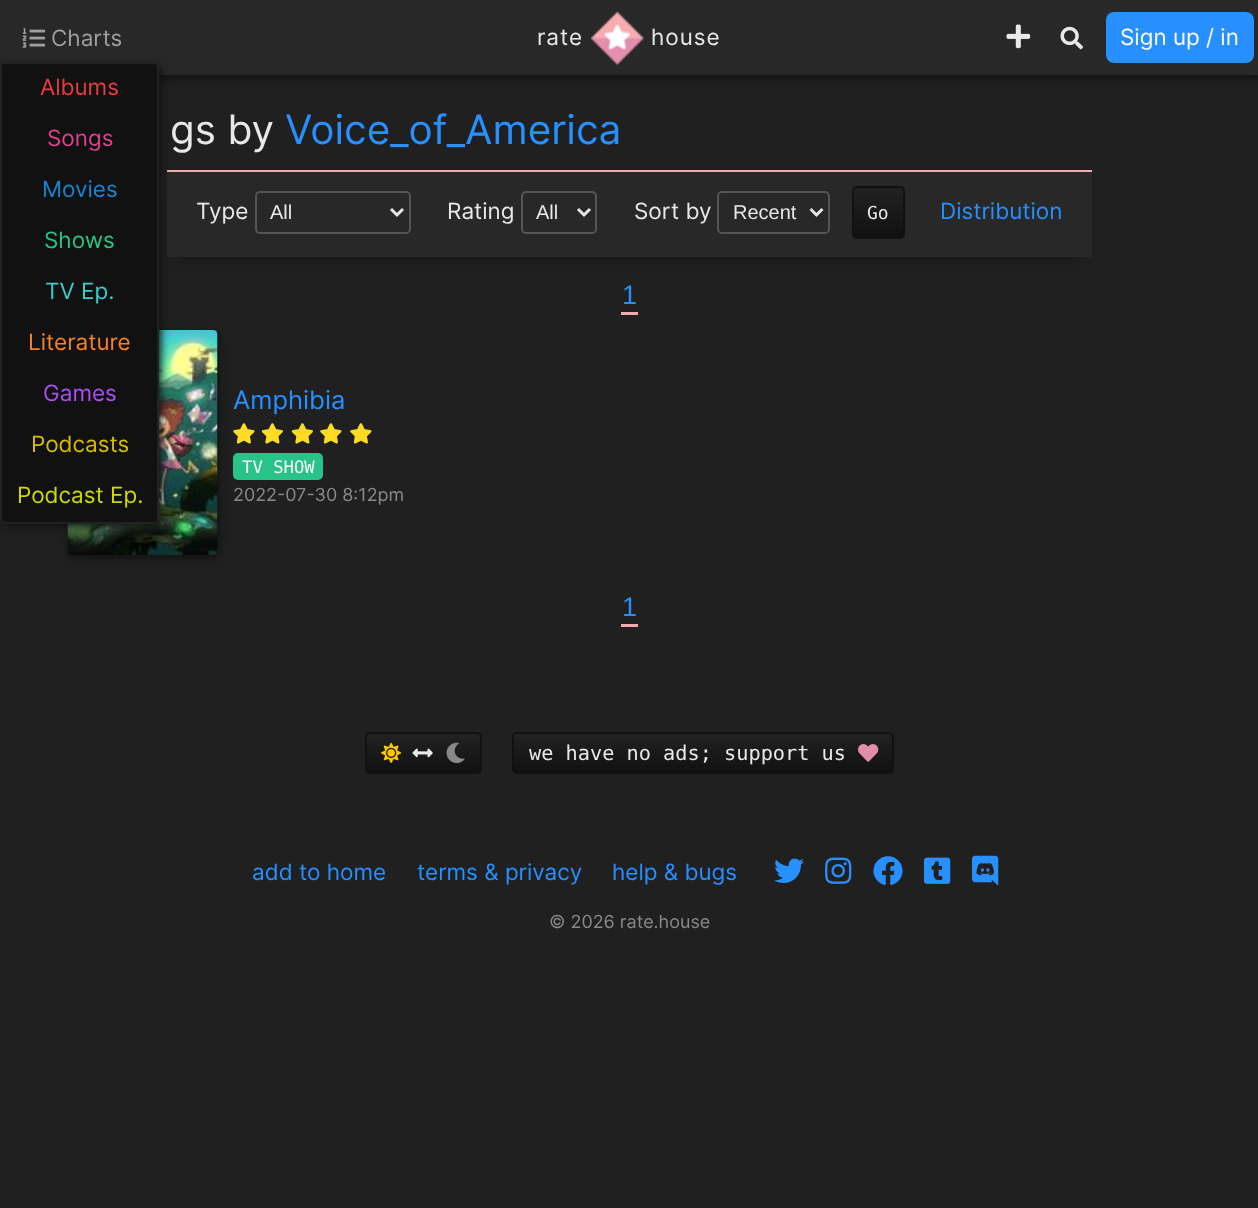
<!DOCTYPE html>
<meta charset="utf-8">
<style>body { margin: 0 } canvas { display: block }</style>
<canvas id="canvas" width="1258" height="1208"></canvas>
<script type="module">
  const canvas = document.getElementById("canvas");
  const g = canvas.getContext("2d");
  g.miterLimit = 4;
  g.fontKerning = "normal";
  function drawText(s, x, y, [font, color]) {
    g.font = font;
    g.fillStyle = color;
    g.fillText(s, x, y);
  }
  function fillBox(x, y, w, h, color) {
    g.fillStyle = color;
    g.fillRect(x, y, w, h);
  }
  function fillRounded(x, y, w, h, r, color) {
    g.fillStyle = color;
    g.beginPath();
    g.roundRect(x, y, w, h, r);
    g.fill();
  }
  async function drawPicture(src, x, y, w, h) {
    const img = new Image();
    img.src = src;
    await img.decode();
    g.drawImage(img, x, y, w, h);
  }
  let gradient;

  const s1 = ["22.5px Inter", "#9F9F9F"];
  const s2 = ["22.5px Inter", "#EC3B40"];
  const s3 = ["22.5px Inter", "#DE4288"];
  const s4 = ["22.5px Inter", "#1785D0"];
  const s5 = ["22.5px Inter", "#28C388"];
  const s6 = ["22.5px Inter", "#38CECC"];
  const s7 = ["22.5px Inter", "#F58128"];
  const s8 = ["22.5px Inter", "#AC4EF3"];
  const s9 = ["22.5px Inter", "#DABB00"];
  const s10 = ["22.5px Inter", "#CDDA00"];
  const s11 = ["22.5px Inter", "#E8E8E8"];
  const s12 = ["22.5px Inter", "#FCFCFC"];
  const s13 = ["40.5px Inter", "#E8E8E8"];
  const s14 = ["40.5px Inter", "#288FFF"];
  const s15 = ["20px Liberation Sans", "#E8E8E8"];
  const s16 = ["18px DejaVu Sans Mono", "#E8E8E8"];
  const s17 = ["22.5px Inter", "#288FFF"];
  const s18 = ["27px Liberation Sans", "#288FFF"];
  const s19 = ["25.5px Inter", "#288FFF"];
  const s20 = ["17.25px DejaVu Sans Mono", "#FCFCFC"];
  const s21 = ["18px Inter", "#8A8A8A"];
  const s22 = ["20.25px DejaVu Sans Mono", "#E8E8E8"];

  fillBox(0, 0, 1258, 1208, "#202020");
  g.fillStyle = "#111111";
  g.filter = "blur(4px)";
  g.beginPath();
  g.rect(2, 3, 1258, 75);
  g.fill();
  g.filter = "none";
  fillBox(0, 0, 1258, 75, "#282828");
  await drawPicture("pic1.png", 22, 28, 23, 20);
  drawText("Charts", 51, 46, s1);
  g.fillStyle = "#111111";
  g.filter = "blur(6px)";
  g.beginPath();
  g.rect(179, 194, 901, 63);
  g.fill();
  g.filter = "none";
  fillBox(167, 172, 925, 85, "#282828");
  fillBox(167, 170, 925, 2, "#F4ABAE");
  g.fillStyle = "#111111";
  g.filter = "blur(4px)";
  g.beginPath();
  g.roundRect(69, 333, 150, 225, 5);
  g.fill();
  g.filter = "none";
  await drawPicture("pic5.png", 67, 330, 151, 225);
  g.filter = "blur(4px)";
  g.beginPath();
  g.roundRect(2, 65, 159, 462, 5);
  g.fill();
  g.filter = "none";
  g.beginPath();
  g.roundRect(1, 63, 157, 460, 4);
  g.fill();
  g.strokeStyle = "#222222";
  g.lineWidth = 2;
  g.stroke();
  drawText("Albums", 40, 95, s2);
  drawText("Songs", 47, 146, s3);
  drawText("Movies", 42, 197, s4);
  drawText("Shows", 44, 248, s5);
  drawText("TV Ep.", 45, 299, s6);
  drawText("Literature", 28, 350, s7);
  drawText("Games", 43, 401, s8);
  drawText("Podcasts", 31, 452, s9);
  drawText("Podcast Ep.", 17, 503, s10);
  g.letterSpacing = "1px";
  drawText("rate", 537, 45, s11);
  await drawPicture("pic2.png", 591, 11, 53, 54);
  drawText("house", 651, 45, s11);
  await drawPicture("pic3.png", 1006, 24, 25, 25);
  await drawPicture("pic4.png", 1060, 26, 23, 24);
  fillRounded(1106, 12, 148, 51, 8, "#288FFF");
  g.letterSpacing = "0px";
  drawText("Sign up / in", 1120, 45, s12);
  drawText("gs by", 170, 144, s13);
  drawText("Voice_of_America", 285, 144, s14);
  drawText("Type", 196, 219, s11);
  g.beginPath();
  g.roundRect(256, 192, 154, 41, 4);
  g.strokeStyle = "#555555";
  g.stroke();
  g.beginPath();
  g.moveTo(391, 209);
  g.lineTo(397, 215);
  g.lineTo(403, 209);
  g.strokeStyle = "#E8E8E8";
  g.lineWidth = 3;
  g.stroke();
  drawText("All", 270, 219, s15);
  drawText("Rating", 447, 219, s11);
  g.beginPath();
  g.roundRect(522, 192, 74, 41, 4);
  g.strokeStyle = "#555555";
  g.lineWidth = 2;
  g.stroke();
  g.beginPath();
  g.moveTo(578, 209);
  g.lineTo(584, 215);
  g.lineTo(590, 209);
  g.strokeStyle = "#E8E8E8";
  g.lineWidth = 3;
  g.stroke();
  drawText("All", 536, 219, s15);
  drawText("Sort by", 634, 219, s11);
  g.beginPath();
  g.roundRect(718, 192, 111, 41, 4);
  g.strokeStyle = "#555555";
  g.lineWidth = 2;
  g.stroke();
  g.beginPath();
  g.moveTo(810.5, 209);
  g.lineTo(816.5, 215);
  g.lineTo(822.5, 209);
  g.strokeStyle = "#E8E8E8";
  g.lineWidth = 3;
  g.stroke();
  drawText("Recent", 733, 219, s15);
  g.save();
  g.beginPath();
  g.roundRect(852, 186, 53, 53, 5);
  g.clip();
  gradient = g.createLinearGradient(878, 188, 878, 237);
  gradient.addColorStop(0, "#222222");
  gradient.addColorStop(1, "#111111");
  g.fillStyle = gradient;
  g.fillRect(852, 188, 53, 49);
  g.restore();
  g.beginPath();
  g.roundRect(853, 187, 51, 51, 4);
  g.strokeStyle = "#111111";
  g.lineWidth = 2;
  g.stroke();
  drawText("Go", 867, 219, s16);
  drawText("Distribution", 940, 219, s17);
  fillBox(621, 312, 17, 3, "#F4ABAE");
  drawText("1", 622, 304, s18);
  drawText("Amphibia", 233, 409, s19);
  await drawPicture("pic6.png", 233, 423, 22, 21);
  await drawPicture("pic7.png", 261, 423, 22, 21);
  await drawPicture("pic7.png", 291, 423, 22, 21);
  await drawPicture("pic6.png", 320, 423, 22, 21);
  await drawPicture("pic6.png", 350, 423, 22, 21);
  await drawPicture("pic8.png", 233, 423, 22, 21);
  await drawPicture("pic9.png", 261, 423, 22, 21);
  await drawPicture("pic9.png", 291, 423, 22, 21);
  await drawPicture("pic8.png", 320, 423, 22, 21);
  await drawPicture("pic8.png", 350, 423, 22, 21);
  fillRounded(233, 453, 90, 27, 5, "#28C388");
  drawText("TV SHOW", 242, 473, s20);
  drawText("2022-07-30 8:12pm", 233, 501, s21);
  fillBox(621, 624, 17, 3, "#F4ABAE");
  drawText("1", 622, 616, s18);
  g.save();
  g.beginPath();
  g.roundRect(365, 732, 117, 42, 5);
  g.clip();
  gradient = g.createLinearGradient(423, 734, 423, 773);
  gradient.addColorStop(0, "#222222");
  gradient.addColorStop(1, "#111111");
  g.fillStyle = gradient;
  g.fillRect(365, 734, 117, 39);
  g.restore();
  g.beginPath();
  g.roundRect(366, 733, 115, 40, 4);
  g.stroke();
  await drawPicture("pic10.png", 381, 742, 21, 21);
  await drawPicture("pic11.png", 412, 748, 21, 10);
  await drawPicture("pic12.png", 446, 742, 19, 21);
  g.save();
  g.beginPath();
  g.roundRect(512, 732, 382, 42, 5);
  g.clip();
  gradient = g.createLinearGradient(703, 734, 703, 773);
  gradient.addColorStop(0, "#222222");
  gradient.addColorStop(1, "#111111");
  g.fillStyle = gradient;
  g.fillRect(512, 734, 382, 39);
  g.restore();
  g.beginPath();
  g.roundRect(513, 733, 380, 40, 4);
  g.stroke();
  drawText("we have no ads; support us", 529, 760, s22);
  await drawPicture("pic13.png", 858, 744, 21, 18);
  drawText("add to home", 252, 880, s17);
  drawText("terms & privacy", 417, 880, s17);
  drawText("help & bugs", 612, 880, s17);
  await drawPicture("pic14.png", 774, 858, 30, 25);
  await drawPicture("pic15.png", 825, 857, 27, 27);
  await drawPicture("pic16.png", 873, 856, 30, 29);
  await drawPicture("pic17.png", 924, 857, 27, 27);
  await drawPicture("pic18.png", 972, 855, 27, 31);
  drawText("© 2026 rate.house", 549, 928, s21);
</script>
